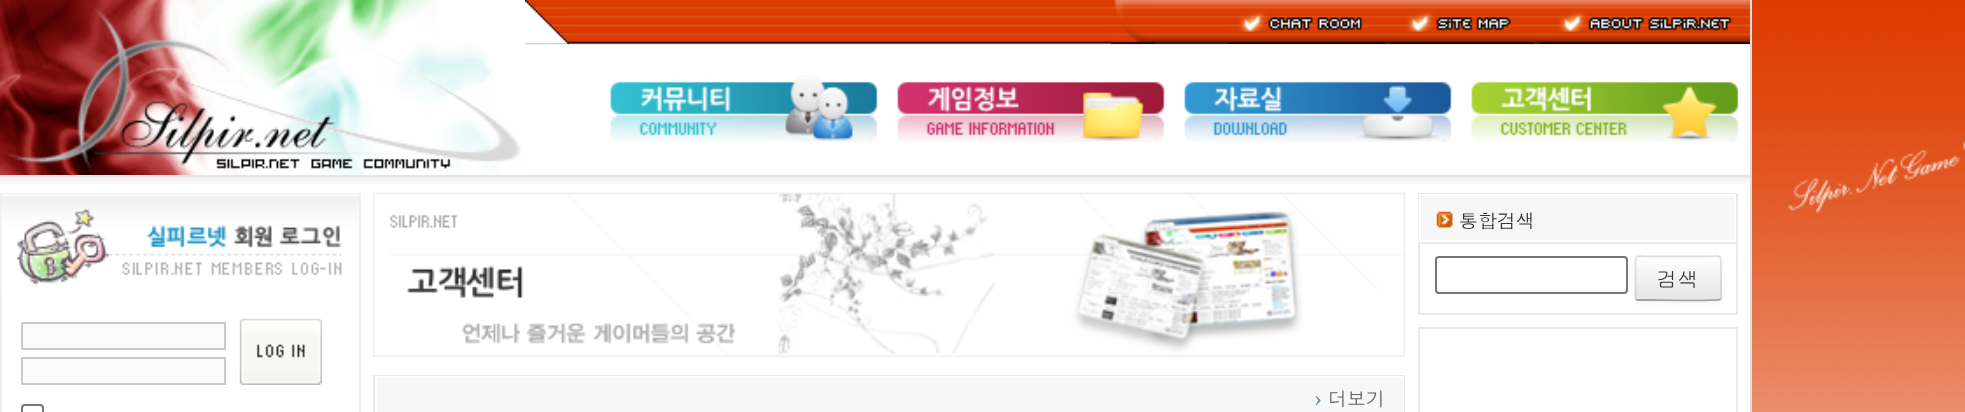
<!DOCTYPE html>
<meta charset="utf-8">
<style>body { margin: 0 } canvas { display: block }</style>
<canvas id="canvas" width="1965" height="412"></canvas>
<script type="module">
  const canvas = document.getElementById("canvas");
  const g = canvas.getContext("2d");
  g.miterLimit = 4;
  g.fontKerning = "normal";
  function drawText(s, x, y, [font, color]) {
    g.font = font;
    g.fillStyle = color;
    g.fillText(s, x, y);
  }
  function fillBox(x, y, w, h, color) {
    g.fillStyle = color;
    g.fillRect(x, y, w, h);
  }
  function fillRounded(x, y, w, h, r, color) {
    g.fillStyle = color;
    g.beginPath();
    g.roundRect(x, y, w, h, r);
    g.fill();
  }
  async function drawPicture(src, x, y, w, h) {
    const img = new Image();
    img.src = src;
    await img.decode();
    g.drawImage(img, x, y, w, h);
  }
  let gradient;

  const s1 = ["19px Dotum", "#333333"];
  const s2 = ["21px Gulim", "#333333"];
  const s3 = ["24px Liberation Serif", "#6E89AA"];
  const s4 = ["19px Dotum", "#656565"];

  fillBox(0, 0, 1965, 412, "#FFFFFF");
  await drawPicture("pic1.png", 1752, 0, 213, 412);
  fillBox(1750, 0, 2, 412, "#DEDEDE");
  await drawPicture("pic2.png", 0, 0, 1750, 184);
  await drawPicture("pic3.png", 0, 0, 525, 175);
  await drawPicture("pic4.png", 525, 0, 44, 44);
  await drawPicture("pic5.png", 1111, 0, 44, 44);
  await drawPicture("pic6.png", 1155, 0, 595, 44);
  await drawPicture("pic7.png", 1228, 11, 157, 33);
  await drawPicture("pic8.png", 1391, 11, 142, 33);
  await drawPicture("pic9.png", 1540, 11, 210, 33);
  await drawPicture("pic10.png", 610, 75, 268, 67);
  await drawPicture("pic11.png", 897, 81, 268, 61);
  await drawPicture("pic12.png", 1184, 81, 268, 61);
  await drawPicture("pic13.png", 1471, 81, 268, 61);
  g.strokeStyle = "#EFEFEF";
  g.lineWidth = 2;
  g.strokeRect(1, 194, 359, 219);
  await drawPicture("pic14.png", 1, 194, 358, 96);
  g.fillStyle = "#FBFBFB";
  g.beginPath();
  g.rect(22, 323, 203, 26);
  g.fill();
  g.strokeStyle = "#C9C9C9";
  g.stroke();
  g.beginPath();
  g.rect(22, 358, 203, 26);
  g.fill();
  g.stroke();
  g.beginPath();
  g.roundRect(22, 405, 21, 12, 3);
  g.strokeStyle = "#767676";
  g.stroke();
  await drawPicture("pic15.png", 239, 318, 83, 67);
  g.strokeStyle = "#E9E9E9";
  g.strokeRect(1419, 194, 318, 120);
  g.fillStyle = "#F7F7F7";
  g.beginPath();
  g.rect(1420, 195, 315, 46);
  g.fill();
  g.strokeStyle = "#FFFFFF";
  g.stroke();
  await drawPicture("pic16.png", 1436, 211, 17, 17);
  drawText("통합검색", 1459, 228, s1);
  fillBox(1419, 242, 317, 2, "#E9E9E9");
  g.beginPath();
  g.roundRect(1436, 257, 191, 36, 3);
  g.strokeStyle = "#767676";
  g.stroke();
  g.fillStyle = "rgba(0, 0, 0, 0.05)";
  g.filter = "blur(2px)";
  g.beginPath();
  g.roundRect(1635, 257, 87, 46, 4);
  g.fill();
  g.filter = "none";
  fillRounded(1635, 256, 87, 45, 4, "#F5F5F5");
  g.save();
  g.beginPath();
  g.roundRect(1635, 256, 87, 45, 4);
  g.clip();
  gradient = g.createLinearGradient(1678, 257, 1678, 299);
  gradient.addColorStop(0, "#FFFFFF");
  gradient.addColorStop(1, "#E6E6E6");
  g.fillStyle = gradient;
  g.fillRect(1635, 257, 87, 42);
  g.restore();
  g.beginPath();
  g.moveTo(1720.5, 299.5);
  g.lineTo(1720, 299.5);
  g.bezierCurveTo(1718, 301, 1659, 300, 1651.5, 300);
  g.lineTo(1638, 300);
  g.lineTo(1636, 299.5);
  g.strokeStyle = "#A2A2A2";
  g.lineWidth = 1.8;
  g.stroke();
  g.beginPath();
  g.moveTo(1636, 299.5);
  g.bezierCurveTo(1634.5, 297.5, 1635.5, 291.5, 1635.5, 291);
  g.lineTo(1635.5, 265.5);
  g.bezierCurveTo(1635.5, 252.5, 1636, 256.5, 1651.5, 256.5);
  g.lineTo(1705, 256.5);
  g.bezierCurveTo(1720.5, 256.5, 1721, 252.5, 1721, 265.5);
  g.lineTo(1721, 291);
  g.bezierCurveTo(1721, 291.5, 1722, 297.5, 1720.5, 299.5);
  g.strokeStyle = "rgba(0, 0, 0, 0.1)";
  g.stroke();
  drawText("검색", 1656, 287, s2);
  g.strokeStyle = "#E9E9E9";
  g.lineWidth = 2;
  g.strokeRect(1419, 328, 318, 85);
  await drawPicture("pic17.png", 372, 192, 1034, 165);
  g.strokeRect(374, 376, 1030, 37);
  g.fillStyle = "#F7F7F7";
  g.beginPath();
  g.rect(376, 377, 1027, 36);
  g.fill();
  g.strokeStyle = "#FFFFFF";
  g.stroke();
  drawText("›", 1314, 406, s3);
  drawText("더보기", 1328, 406, s4);
</script>
